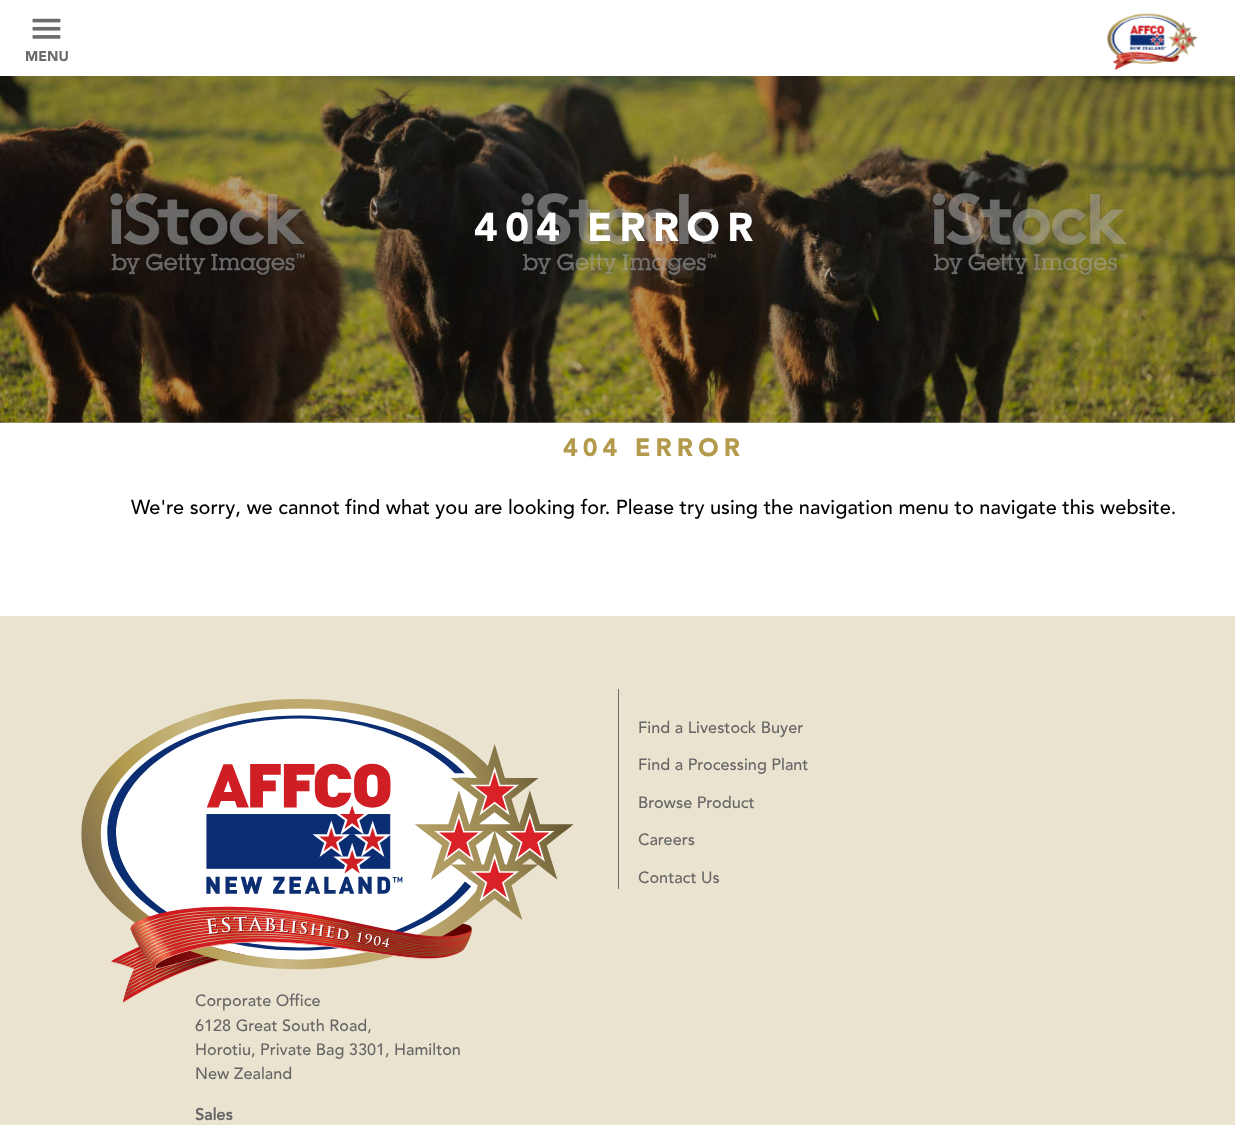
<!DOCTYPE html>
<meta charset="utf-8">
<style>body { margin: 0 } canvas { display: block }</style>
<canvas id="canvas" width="1235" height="1125"></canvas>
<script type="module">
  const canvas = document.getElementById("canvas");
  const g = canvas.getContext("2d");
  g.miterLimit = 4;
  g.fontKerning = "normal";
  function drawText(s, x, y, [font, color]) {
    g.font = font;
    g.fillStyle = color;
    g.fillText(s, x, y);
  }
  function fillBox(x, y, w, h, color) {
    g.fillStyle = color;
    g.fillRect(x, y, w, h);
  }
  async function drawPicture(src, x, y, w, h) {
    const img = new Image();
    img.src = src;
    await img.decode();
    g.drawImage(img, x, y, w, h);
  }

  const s1 = ["900 14px 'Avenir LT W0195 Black'", "#6C6C6C"];
  const s2 = ["900 40px 'Avenir LT W0195 Black'", "#FFFFFF"];
  const s3 = ["900 25px 'Avenir LT W0195 Black'", "#B39A4C"];
  const s4 = ["500 20px 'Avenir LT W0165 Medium'", "#000000"];
  const s5 = ["500 16.25px 'Avenir LT W0165 Medium'", "#666666"];
  const s6 = ["bold 16.25px 'Avenir LT W0165 Medium'", "#666666"];

  fillBox(0, 0, 1235, 1125, "#FFFFFF");
  await drawPicture("pic1.png", 32, 18, 29, 21);
  drawText("MENU", 25, 61, s1);
  await drawPicture("pic2.png", 1107, 13, 91, 57);
  await drawPicture("pic3.png", 0, 76, 1235, 347);
  g.letterSpacing = "7.5px";
  drawText("404 ERROR", 474, 241, s2);
  g.letterSpacing = "5px";
  drawText("404 ERROR", 563, 456, s3);
  g.letterSpacing = "0px";
  drawText("We're sorry, we cannot find what you are looking for. Please try using the navigation menu to navigate this website.", 131, 514, s4);
  fillBox(0, 616, 1235, 509, "#EAE3D0");
  await drawPicture("pic4.png", 81, 699, 493, 304);
  fillBox(618, 689, 1, 200, "#6C6C6C");
  drawText("Find a Livestock Buyer", 638, 733, s5);
  drawText("Find a Processing Plant", 638, 770, s5);
  drawText("Browse Product", 638, 808, s5);
  drawText("Careers", 638, 845, s5);
  drawText("Contact Us", 638, 883, s5);
  drawText("Corporate Office", 195, 1006, s5);
  drawText("6128 Great South Road,", 195, 1031, s5);
  drawText("Horotiu, Private Bag 3301, Hamilton", 195, 1055, s5);
  drawText("New Zealand", 195, 1079, s5);
  drawText("Sales", 195, 1120, s6);
</script>
